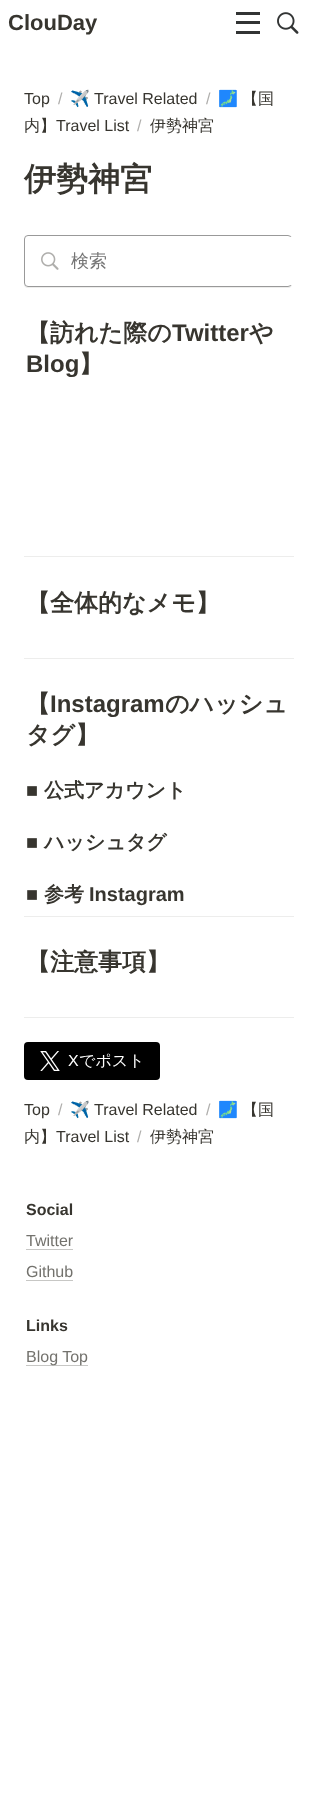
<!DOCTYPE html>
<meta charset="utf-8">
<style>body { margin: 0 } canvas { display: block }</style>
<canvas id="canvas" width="316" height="1800"></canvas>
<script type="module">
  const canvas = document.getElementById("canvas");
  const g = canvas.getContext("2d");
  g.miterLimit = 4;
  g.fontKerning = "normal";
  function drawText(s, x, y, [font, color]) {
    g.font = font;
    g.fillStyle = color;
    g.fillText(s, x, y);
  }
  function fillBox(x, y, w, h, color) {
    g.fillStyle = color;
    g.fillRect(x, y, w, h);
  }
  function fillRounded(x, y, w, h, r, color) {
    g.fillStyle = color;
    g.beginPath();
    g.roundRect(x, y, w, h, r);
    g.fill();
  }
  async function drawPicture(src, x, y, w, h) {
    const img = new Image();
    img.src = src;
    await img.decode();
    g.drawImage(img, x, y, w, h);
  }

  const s1 = ["bold 22px Liberation Sans", "#37352F"];
  const s2 = ["16px Liberation Sans", "#37352F"];
  const s3 = ["16px Liberation Sans", "#AFAEAC"];
  const s4 = ["16px Noto Color Emoji", "#37352F"];
  const s5 = ["500 16px WenQuanYi Zen Hei", "#37352F"];
  const s6 = ["bold 32px WenQuanYi Zen Hei", "#37352F"];
  const s7 = ["500 18px WenQuanYi Zen Hei", "#757575"];
  const s8 = ["bold 24px WenQuanYi Zen Hei", "#37352F"];
  const s9 = ["bold 24px Liberation Sans", "#37352F"];
  const s10 = ["bold 20px Liberation Sans", "#37352F"];
  const s11 = ["bold 20px WenQuanYi Zen Hei", "#37352F"];
  const s12 = ["16px Liberation Sans", "#FFFFFF"];
  const s13 = ["500 16px WenQuanYi Zen Hei", "#FFFFFF"];
  const s14 = ["bold 16px Liberation Sans", "#37352F"];
  const s15 = ["16px Liberation Sans", "#73726D"];

  fillBox(0, 0, 316, 1800, "#FFFFFF");
  drawText("ClouDay", 8, 30, s1);
  fillBox(236, 12, 24, 3, "#323434");
  fillBox(236, 21, 24, 3, "#323434");
  fillBox(236, 31, 24, 3, "#323434");
  await drawPicture("pic1.png", 277, 12, 22, 22);
  drawText("Top", 24, 104, s2);
  drawText("/", 58, 104, s3);
  drawText("✈️", 70, 104, s4);
  drawText("Travel Related", 94, 104, s2);
  drawText("/", 206, 104, s3);
  drawText("🗾", 218, 104, s4);
  drawText("【国", 242, 104, s5);
  drawText("内】", 24, 131, s5);
  drawText("Travel List", 56, 131, s2);
  drawText("/", 137, 131, s3);
  drawText("伊勢神宮", 150, 131, s5);
  drawText("伊勢神宮", 24, 190, s6);
  g.fillStyle = "#EDEDEC";
  g.beginPath();
  g.moveTo(24, 283);
  g.bezierCurveTo(24, 286, 25, 288, 28, 288);
  g.lineTo(288, 288);
  g.bezierCurveTo(291, 288, 292, 286, 292, 283);
  g.bezierCurveTo(292, 285, 290, 287, 288, 287);
  g.lineTo(26, 287);
  g.lineTo(25, 285);
  g.closePath();
  g.fill();
  g.beginPath();
  g.roundRect(24.5, 235.5, 267, 51, 3.5);
  g.strokeStyle = "#999999";
  g.stroke();
  await drawPicture("pic2.png", 41, 252, 18, 18);
  fillBox(290, 237, 2, 48, "#FFFFFF");
  drawText("検索", 71, 267, s7);
  drawText("【訪れた際の", 26, 341, s8);
  drawText("Twitter", 172, 341, s9);
  drawText("や", 249, 341, s8);
  drawText("Blog", 26, 372, s9);
  drawText("】", 79, 372, s8);
  g.fillStyle = "#EDEDEC";
  g.beginPath();
  g.moveTo(294, 556);
  g.lineTo(294, 557);
  g.lineTo(293, 556);
  g.closePath();
  g.fill();
  g.fillStyle = "rgba(55, 53, 47, 0.09)";
  g.beginPath();
  g.moveTo(294, 557);
  g.lineTo(24, 557);
  g.lineTo(25, 556);
  g.lineTo(293, 556);
  g.closePath();
  g.fill();
  g.fillStyle = "#E3E3E2";
  g.beginPath();
  g.moveTo(24, 557);
  g.lineTo(24, 556);
  g.lineTo(25, 556);
  g.closePath();
  g.fill();
  drawText("【全体的なメモ】", 26, 611, s8);
  g.fillStyle = "#EDEDEC";
  g.beginPath();
  g.moveTo(294, 658);
  g.lineTo(294, 659);
  g.lineTo(293, 658);
  g.closePath();
  g.fill();
  g.fillStyle = "rgba(55, 53, 47, 0.09)";
  g.beginPath();
  g.moveTo(294, 659);
  g.lineTo(24, 659);
  g.lineTo(25, 658);
  g.lineTo(293, 658);
  g.closePath();
  g.fill();
  g.fillStyle = "#E3E3E2";
  g.beginPath();
  g.moveTo(24, 659);
  g.lineTo(24, 658);
  g.lineTo(25, 658);
  g.closePath();
  g.fill();
  drawText("【", 26, 712, s8);
  drawText("Instagram", 50, 712, s9);
  drawText("のハッシュ", 165, 712, s8);
  drawText("タグ】", 26, 743, s8);
  drawText("■", 26, 797, s10);
  drawText("公式アカウント", 44, 797, s11);
  drawText("■", 26, 849, s10);
  drawText("ハッシュタグ", 44, 849, s11);
  drawText("■", 26, 901, s10);
  drawText("参考", 44, 901, s11);
  drawText("Instagram", 89, 901, s10);
  g.fillStyle = "#EDEDEC";
  g.beginPath();
  g.moveTo(294, 916);
  g.lineTo(294, 917);
  g.lineTo(293, 916);
  g.closePath();
  g.fill();
  g.fillStyle = "rgba(55, 53, 47, 0.09)";
  g.beginPath();
  g.moveTo(294, 917);
  g.lineTo(24, 917);
  g.lineTo(25, 916);
  g.lineTo(293, 916);
  g.closePath();
  g.fill();
  g.fillStyle = "#E3E3E2";
  g.beginPath();
  g.moveTo(24, 917);
  g.lineTo(24, 916);
  g.lineTo(25, 916);
  g.closePath();
  g.fill();
  drawText("【注意事項】", 26, 970, s8);
  g.fillStyle = "#EDEDEC";
  g.beginPath();
  g.moveTo(294, 1017);
  g.lineTo(294, 1018);
  g.lineTo(293, 1017);
  g.closePath();
  g.fill();
  g.fillStyle = "rgba(55, 53, 47, 0.09)";
  g.beginPath();
  g.moveTo(294, 1018);
  g.lineTo(24, 1018);
  g.lineTo(25, 1017);
  g.lineTo(293, 1017);
  g.closePath();
  g.fill();
  g.fillStyle = "#E3E3E2";
  g.beginPath();
  g.moveTo(24, 1018);
  g.lineTo(24, 1017);
  g.lineTo(25, 1017);
  g.closePath();
  g.fill();
  fillRounded(24, 1042, 136, 38, 4, "#000000");
  await drawPicture("pic3.png", 40, 1051, 20, 20);
  drawText("X", 68, 1066, s12);
  drawText("でポスト", 79, 1066, s13);
  drawText("Top", 24, 1115, s2);
  drawText("/", 58, 1115, s3);
  drawText("✈️", 70, 1115, s4);
  drawText("Travel Related", 94, 1115, s2);
  drawText("/", 206, 1115, s3);
  drawText("🗾", 218, 1115, s4);
  drawText("【国", 242, 1115, s5);
  drawText("内】", 24, 1142, s5);
  drawText("Travel List", 56, 1142, s2);
  drawText("/", 137, 1142, s3);
  drawText("伊勢神宮", 150, 1142, s5);
  drawText("Social", 26, 1215, s14);
  drawText("Twitter", 26, 1246, s15);
  fillBox(26, 1249, 47, 1, "#C7C7C5");
  drawText("Github", 26, 1277, s15);
  fillBox(26, 1280, 47, 1, "#C7C7C5");
  drawText("Links", 26, 1331, s14);
  fillBox(26, 1365, 62, 1, "#C7C7C5");
  drawText("Blog Top", 26, 1362, s15);
</script>
